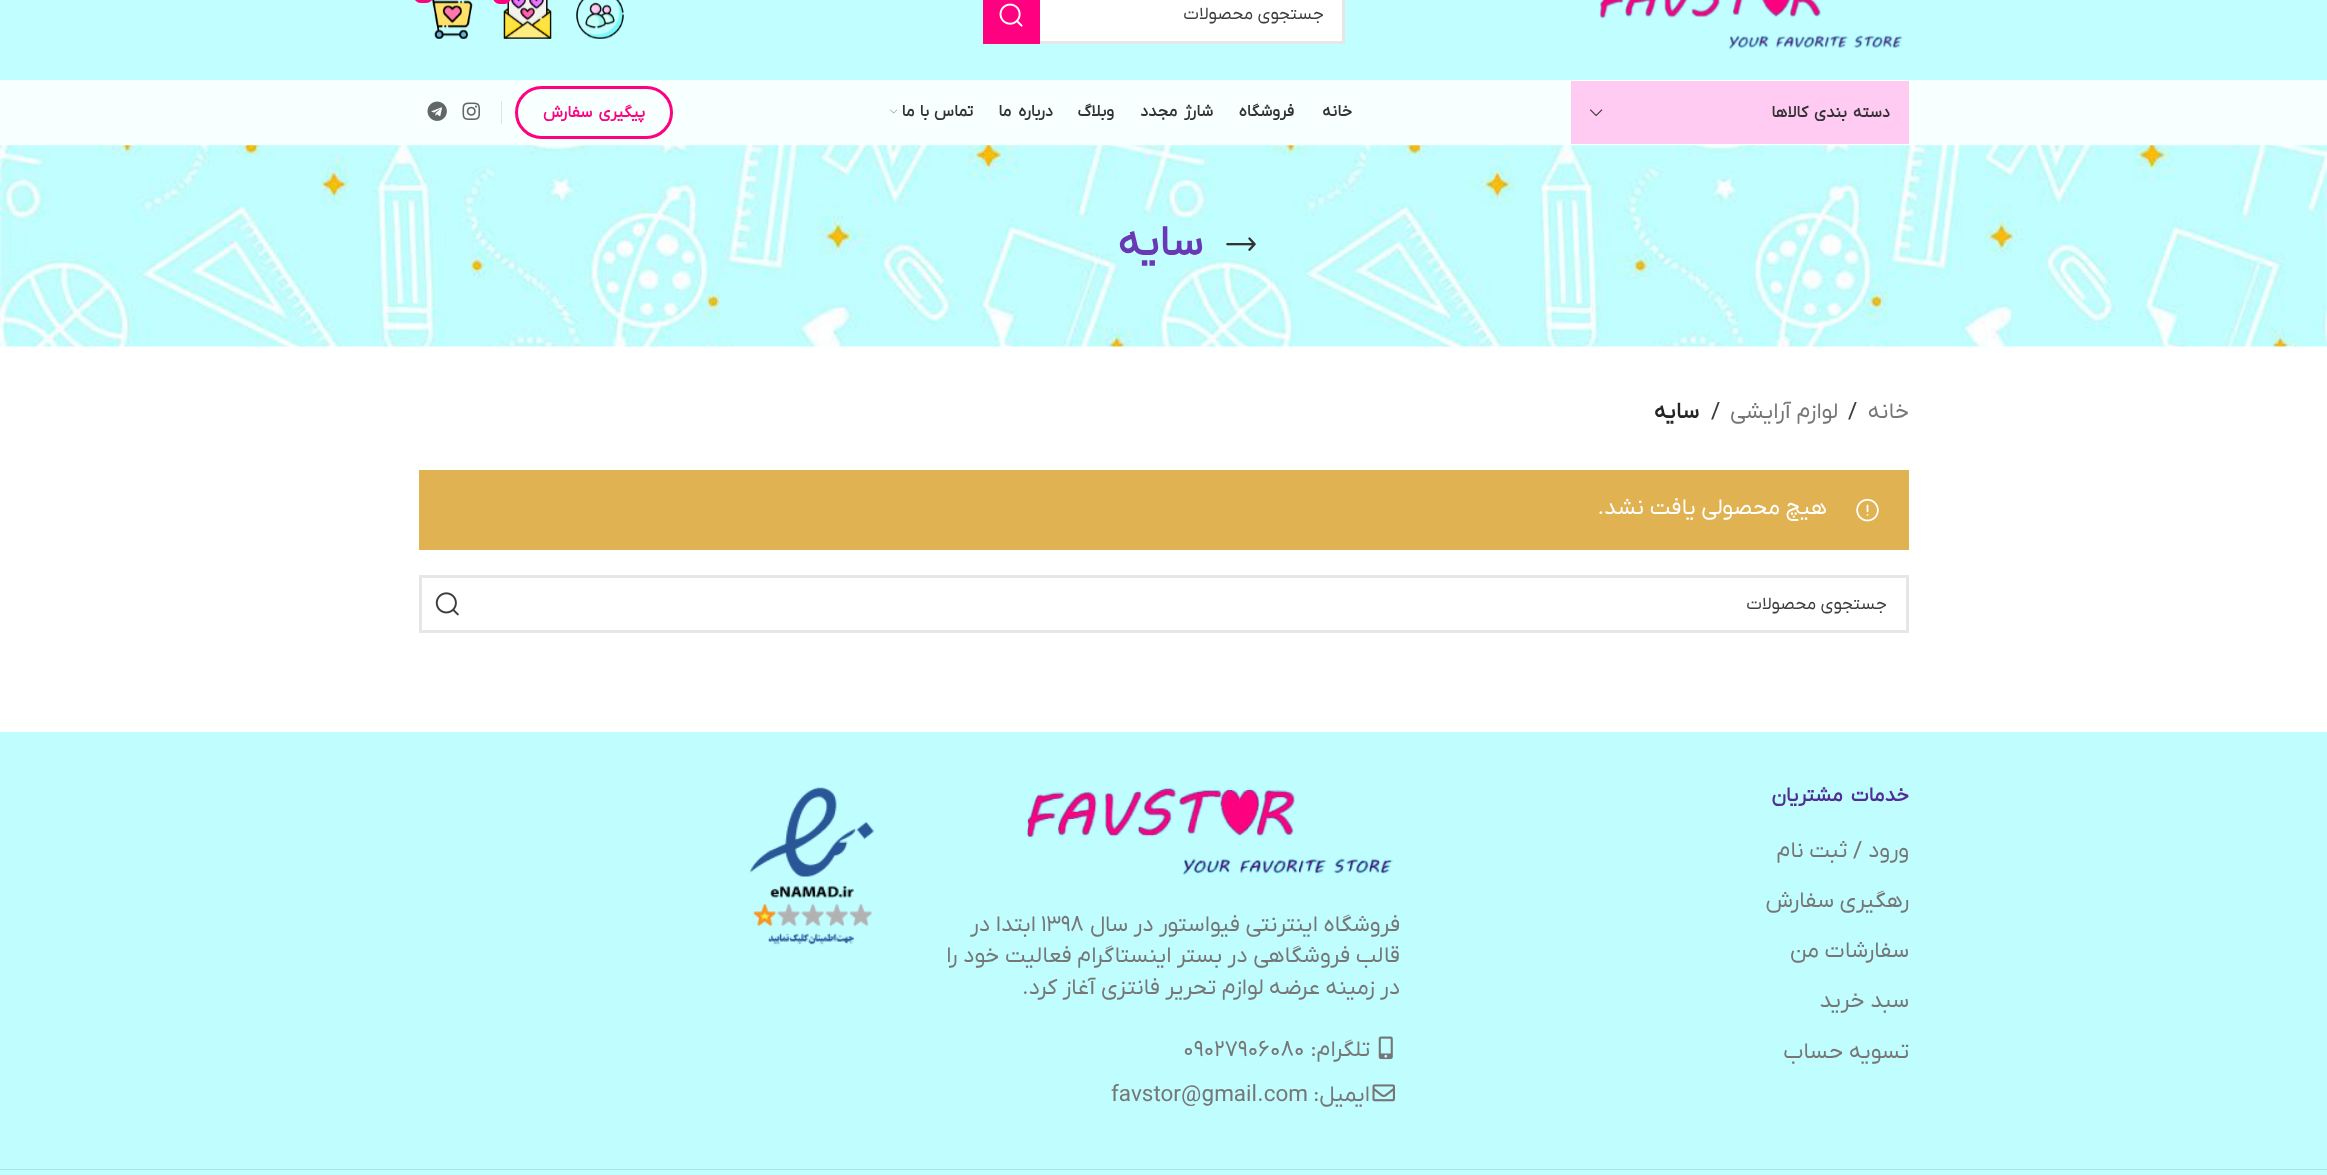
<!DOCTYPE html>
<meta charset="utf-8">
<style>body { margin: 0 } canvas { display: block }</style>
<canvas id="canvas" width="2327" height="1175"></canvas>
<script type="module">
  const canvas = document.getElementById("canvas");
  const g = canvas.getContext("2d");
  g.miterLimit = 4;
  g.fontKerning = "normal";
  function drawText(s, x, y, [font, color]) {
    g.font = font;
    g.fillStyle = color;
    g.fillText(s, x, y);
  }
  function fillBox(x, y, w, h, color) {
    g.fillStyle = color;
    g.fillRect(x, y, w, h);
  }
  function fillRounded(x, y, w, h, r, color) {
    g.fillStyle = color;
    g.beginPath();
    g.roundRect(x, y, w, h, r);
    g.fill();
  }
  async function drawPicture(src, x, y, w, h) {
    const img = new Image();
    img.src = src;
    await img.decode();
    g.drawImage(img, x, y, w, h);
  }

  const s1 = ["17.5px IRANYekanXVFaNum", "#3D3D3D"];
  const s2 = ["bold 16.25px IRANYekanXVFaNum", "#333333"];
  const s3 = ["bold 16.25px IRANYekanXVFaNum", "#FF0080"];
  const s4 = ["bold 42.5px IRANYekanXVFaNum", "#6838B5"];
  const s5 = ["22.5px IRANYekanXVFaNum", "#767676"];
  const s6 = ["22.5px IRANYekanXVFaNum", "#3D3D3D"];
  const s7 = ["bold 22.5px IRANYekanXVFaNum", "#242424"];
  const s8 = ["22.5px IRANYekanXVFaNum", "#FFFFFF"];
  const s9 = ["bold 20px IRANYekanXVFaNum", "#4F2F93"];

  fillBox(0, 0, 2327, 1175, "#FFFFFF");
  fillBox(0, 0, 2327, 80, "#C1FEFF");
  await drawPicture("pic1.png", 1599, 0, 304, 50);
  fillBox(1040, 0, 302, 41, "#FFFFFF");
  g.strokeStyle = "#E6E6E6";
  g.lineWidth = 3;
  g.strokeRect(984.5, -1.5, 359, 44);
  g.direction = "rtl";
  drawText("جستجوی محصولات", 1324, 19, s1);
  fillBox(983, 0, 57, 44, "#FF0080");
  await drawPicture("pic2.png", 999, 3, 24, 24);
  await drawPicture("pic3.png", 576, 0, 48, 39);
  await drawPicture("pic4.png", 503, 0, 49, 39);
  fillRounded(493, -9, 18, 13, 9, "#FF0080");
  await drawPicture("pic5.png", 431, 0, 42, 39);
  fillRounded(414, -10, 19, 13, 9.5, "#FF0080");
  fillBox(0, 80, 2327, 65, "#F7FFFF");
  fillBox(1571, 81, 338, 63, "#FFCBF2");
  g.wordSpacing = "2px";
  drawText("دسته بندی کالاها", 1890, 117, s2);
  await drawPicture("pic6.png", 1590, 109, 13, 7);
  g.wordSpacing = "0px";
  drawText("خانه", 1352, 116, s2);
  drawText("فروشگاه", 1294, 116, s2);
  g.wordSpacing = "3px";
  drawText("شارژ مجدد", 1213, 116, s2);
  g.wordSpacing = "0px";
  drawText("وبلاگ", 1114, 116, s2);
  g.wordSpacing = "3px";
  drawText("درباره ما", 1053, 116, s2);
  g.wordSpacing = "1px";
  drawText("تماس با ما", 973, 116, s2);
  await drawPicture("pic7.png", 890, 109, 8, 5);
  g.beginPath();
  g.roundRect(516.5, 87.5, 155, 50, 25);
  g.strokeStyle = "#FF0080";
  g.stroke();
  g.wordSpacing = "2px";
  drawText("پیگیری سفارش", 645, 117, s3);
  fillBox(501, 101, 1, 23, "#DDE4E4");
  await drawPicture("pic8.png", 462, 102, 18, 18);
  await drawPicture("pic9.png", 427, 101, 20, 20);
  await drawPicture("pic10.png", 0, 145, 2327, 202);
  await drawPicture("pic11.png", 1226, 237, 30, 14);
  g.wordSpacing = "0px";
  drawText("سايه", 1203, 255, s4);
  drawText("خانه", 1909, 418, s5);
  g.direction = "ltr";
  drawText("/", 1848, 418, s6);
  g.direction = "rtl";
  drawText("لوازم آرایشی", 1838, 418, s5);
  g.direction = "ltr";
  drawText("/", 1711, 418, s6);
  g.direction = "rtl";
  drawText("سايه", 1699, 418, s7);
  fillBox(419, 470, 1490, 80, "#E0B252");
  await drawPicture("pic12.png", 1856, 498, 23, 24);
  drawText("هیچ محصولی یافت نشد.", 1827, 514, s8);
  g.strokeStyle = "#E6E6E6";
  g.strokeRect(420.5, 576.5, 1487, 55);
  drawText("جستجوی محصولات", 1887, 609, s1);
  await drawPicture("pic13.png", 435, 592, 24, 24);
  fillBox(0, 732, 2327, 443, "#C0FDFE");
  g.wordSpacing = "3px";
  drawText("خدمات مشتریان", 1909, 801, s9);
  g.wordSpacing = "0px";
  drawText("ورود / ثبت نام", 1909, 857, s5);
  drawText("رهگیری سفارش", 1909, 907, s5);
  drawText("سفارشات من", 1909, 957, s5);
  drawText("سبد خرید", 1909, 1007, s5);
  drawText("تسویه حساب", 1909, 1058, s5);
  await drawPicture("pic14.png", 1026, 787, 367, 88);
  drawText("فروشگاه اینترنتی فیواستور در سال", 1400, 931, s5);
  g.direction = "ltr";
  drawText("۱۳۹۸", 1041, 931, s5);
  g.direction = "rtl";
  drawText("ابتدا در", 1036, 931, s5);
  drawText("قالب فروشگاهی در بستر اینستاگرام فعالیت خود را", 1400, 962, s5);
  drawText("در زمینه عرضه لوازم تحریر فانتزی آغاز کرد.", 1400, 994, s5);
  await drawPicture("pic15.png", 1378, 1036, 15, 24);
  drawText("تلگرام:", 1370, 1056, s5);
  g.direction = "ltr";
  drawText("09027906080", 1183, 1056, s5);
  await drawPicture("pic16.png", 1372, 1084, 23, 18);
  g.direction = "rtl";
  drawText("ایمیل:", 1370, 1101, s5);
  g.direction = "ltr";
  drawText("favstor@gmail.com", 1111, 1101, s5);
  await drawPicture("pic17.png", 750, 787, 124, 158);
  fillBox(0, 1169, 2327, 1, "#ACE2E3");
</script>
